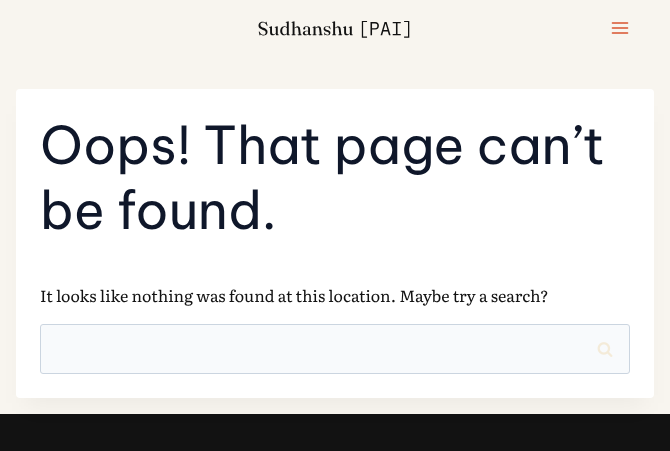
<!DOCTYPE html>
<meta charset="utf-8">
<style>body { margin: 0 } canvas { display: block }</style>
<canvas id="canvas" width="670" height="451"></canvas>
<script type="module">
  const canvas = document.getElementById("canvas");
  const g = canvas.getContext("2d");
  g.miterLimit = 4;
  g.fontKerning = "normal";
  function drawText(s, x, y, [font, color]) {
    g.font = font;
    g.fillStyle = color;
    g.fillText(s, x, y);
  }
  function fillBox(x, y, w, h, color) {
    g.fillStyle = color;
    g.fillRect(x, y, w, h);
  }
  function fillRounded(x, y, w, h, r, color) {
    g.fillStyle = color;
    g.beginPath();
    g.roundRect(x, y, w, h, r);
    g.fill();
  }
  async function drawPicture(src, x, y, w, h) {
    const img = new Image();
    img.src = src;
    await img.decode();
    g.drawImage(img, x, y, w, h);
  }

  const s1 = ["52px Be Vietnam Pro", "#0F172A"];
  const s2 = ["16px Literata", "#121212"];

  fillBox(0, 0, 670, 451, "#F8F5EF");
  await drawPicture("pic1.png", 258, 21, 152, 17);
  await drawPicture("pic2.png", 611, 22, 18, 12);
  fillBox(0, 414, 670, 37, "#121212");
  g.fillStyle = "rgba(0, 0, 0, 0.05)";
  g.filter = "blur(12.5px)";
  g.beginPath();
  g.rect(26, 114, 618, 289);
  g.fill();
  g.filter = "none";
  fillRounded(16, 89, 638, 309, 4, "#FFFFFF");
  drawText("Oops! That page can’t", 40, 164, s1);
  drawText("be found.", 40, 229, s1);
  drawText("It looks like nothing was found at this location. Maybe try a search?", 40, 302, s2);
  g.fillStyle = "#F8FAFC";
  g.beginPath();
  g.roundRect(40.5, 324.5, 589, 49, 2.5);
  g.fill();
  g.strokeStyle = "#CBD5E0";
  g.stroke();
  await drawPicture("pic3.png", 597, 342, 16, 15);
</script>
